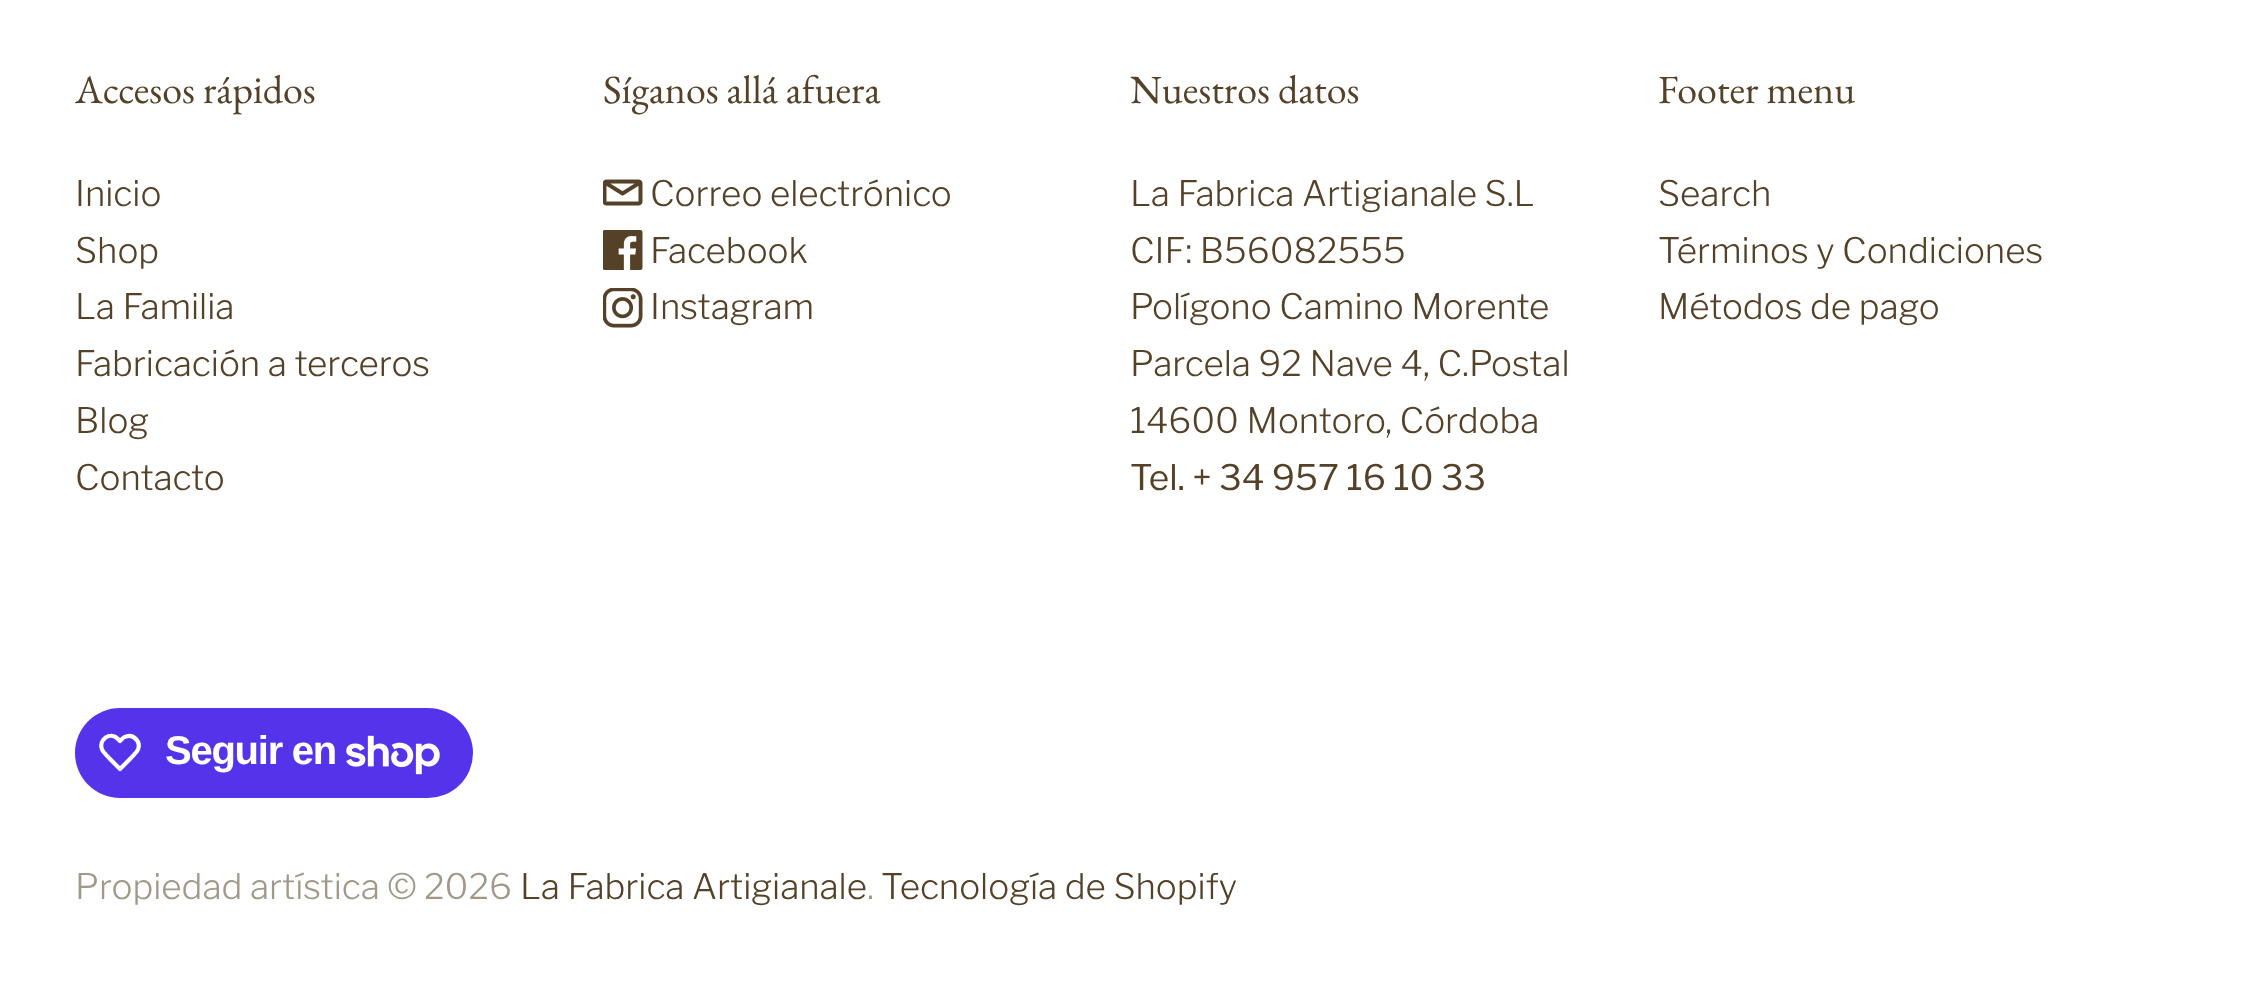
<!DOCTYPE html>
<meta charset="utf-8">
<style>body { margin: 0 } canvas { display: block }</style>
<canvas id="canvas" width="2260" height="992"></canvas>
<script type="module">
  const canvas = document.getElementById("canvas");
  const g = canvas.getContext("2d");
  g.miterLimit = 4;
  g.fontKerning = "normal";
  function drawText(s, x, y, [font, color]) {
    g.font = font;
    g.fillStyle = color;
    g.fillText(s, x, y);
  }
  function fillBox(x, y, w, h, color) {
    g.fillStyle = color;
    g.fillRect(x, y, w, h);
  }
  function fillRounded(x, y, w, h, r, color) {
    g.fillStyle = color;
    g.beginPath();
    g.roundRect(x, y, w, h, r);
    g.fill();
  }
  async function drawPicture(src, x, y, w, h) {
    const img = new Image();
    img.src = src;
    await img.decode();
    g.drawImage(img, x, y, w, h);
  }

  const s1 = ["40px EB Garamond", "#544128"];
  const s2 = ["300 35px Libre Franklin", "#544128"];
  const s3 = ["35px Libre Franklin", "#544128"];
  const s4 = ["bold 40px Liberation Sans", "#FFFFFF"];
  const s5 = ["300 35px Libre Franklin", "#A19889"];

  fillBox(0, 0, 2260, 992, "#FFFFFF");
  drawText("Accesos rápidos", 75, 103, s1);
  drawText("Inicio", 75, 206, s2);
  drawText("Shop", 75, 263, s2);
  drawText("La Familia", 75, 319, s2);
  drawText("Fabricación a terceros", 75, 376, s2);
  drawText("Blog", 75, 433, s2);
  drawText("Contacto", 75, 490, s2);
  drawText("Síganos allá afuera", 603, 103, s1);
  await drawPicture("pic1.png", 603, 179, 40, 27);
  drawText("Correo electrónico", 650, 206, s2);
  await drawPicture("pic2.png", 603, 230, 40, 40);
  drawText("Facebook", 650, 263, s2);
  await drawPicture("pic3.png", 603, 288, 40, 40);
  drawText("Instagram", 650, 319, s2);
  drawText("Nuestros datos", 1130, 103, s1);
  drawText("La Fabrica Artigianale S.L", 1130, 206, s2);
  drawText("CIF: B56082555", 1130, 263, s2);
  drawText("Polígono Camino Morente", 1130, 319, s2);
  drawText("Parcela 92 Nave 4, C.Postal", 1130, 376, s2);
  drawText("14600 Montoro, Córdoba", 1130, 433, s2);
  drawText("Tel. + 34 957 16 10 33", 1130, 490, s3);
  drawText("Footer menu", 1658, 103, s1);
  drawText("Search", 1658, 206, s2);
  drawText("Términos y Condiciones", 1658, 263, s2);
  drawText("Métodos de pago", 1658, 319, s2);
  fillRounded(75, 708, 398, 90, 45, "#5433EB");
  g.beginPath();
  g.moveTo(118, 739);
  g.lineTo(120, 741);
  g.bezierCurveTo(122, 739, 123.5, 737, 126, 736.5);
  g.bezierCurveTo(134, 734, 141, 742, 138, 749.5);
  g.bezierCurveTo(136.5, 753, 133, 755.5, 130.5, 758.5);
  g.lineTo(120, 769);
  g.lineTo(109.5, 758.5);
  g.bezierCurveTo(107, 755.5, 103.5, 753, 102, 749.5);
  g.bezierCurveTo(98, 739.5, 110.5, 731, 118, 739);
  g.closePath();
  g.strokeStyle = "#FFFFFF";
  g.lineWidth = 4.2;
  g.lineJoin = "round";
  g.stroke();
  g.letterSpacing = "-1.25px";
  drawText("Seguir en", 165, 764, s4);
  await drawPicture("pic4.png", 346, 735, 94, 40);
  g.letterSpacing = "0px";
  drawText("Propiedad artística © 2026", 75, 899, s5);
  drawText("La Fabrica Artigianale", 520, 899, s2);
  drawText(".", 867, 899, s5);
  drawText("Tecnología de Shopify", 881, 899, s2);
</script>
